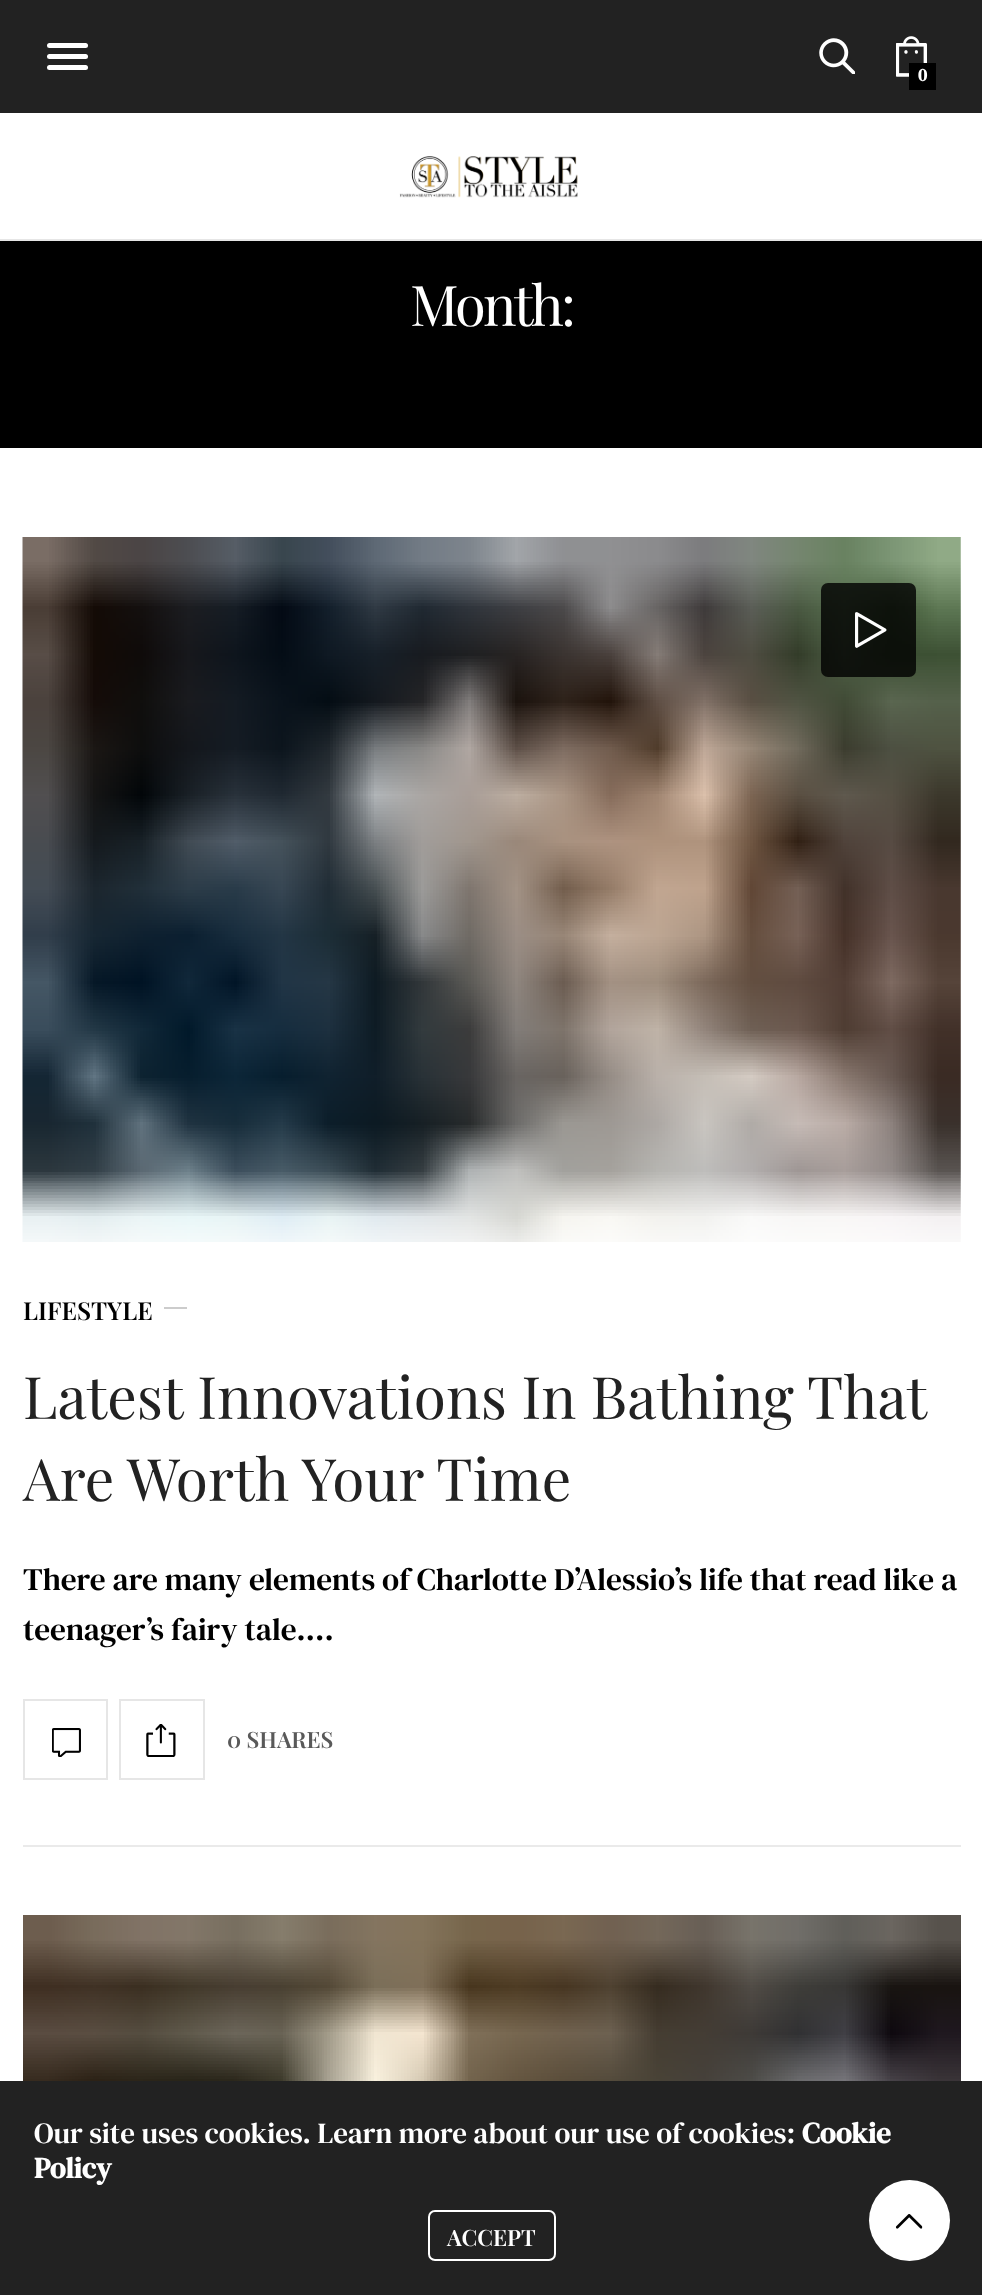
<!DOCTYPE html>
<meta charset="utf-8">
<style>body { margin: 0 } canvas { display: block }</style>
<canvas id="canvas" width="982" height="2295"></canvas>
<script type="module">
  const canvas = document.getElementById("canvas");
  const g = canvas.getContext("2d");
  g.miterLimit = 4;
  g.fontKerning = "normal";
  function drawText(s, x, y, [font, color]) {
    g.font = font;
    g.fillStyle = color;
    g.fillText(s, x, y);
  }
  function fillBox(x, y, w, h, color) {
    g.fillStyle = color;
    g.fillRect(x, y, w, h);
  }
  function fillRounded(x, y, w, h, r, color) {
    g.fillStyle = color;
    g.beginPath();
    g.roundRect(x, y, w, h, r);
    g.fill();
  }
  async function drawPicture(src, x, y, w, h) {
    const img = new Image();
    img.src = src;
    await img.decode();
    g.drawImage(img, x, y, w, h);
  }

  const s1 = ["bold 18px DM Serif Text", "#FFFFFF"];
  const s2 = ["56px Playfair Display", "#FFFFFF"];
  const s3 = ["600 24.75px Playfair Display", "#000000"];
  const s4 = ["58.5px Playfair Display", "#222222"];
  const s5 = ["31.5px DM Serif Text", "#000000"];
  const s6 = ["600 22.5px Playfair Display", "#595959"];
  const s7 = ["29.25px DM Serif Text", "#FFFFFF"];
  const s8 = ["bold 29.25px DM Serif Text", "#FFFFFF"];
  const s9 = ["600 22.5px Playfair Display", "#FFFFFF"];

  fillBox(0, 0, 982, 2295, "#FFFFFF");
  fillBox(0, 0, 982, 113, "#222222");
  fillRounded(47, 43, 41, 5, 2.5, "#FFFFFF");
  fillRounded(47, 54, 41, 5, 2.5, "#FFFFFF");
  fillRounded(47, 65, 41, 5, 2.5, "#FFFFFF");
  await drawPicture("pic1.png", 819, 38, 36, 36);
  await drawPicture("pic2.png", 896, 36, 31, 41);
  fillBox(909, 63, 27, 27, "#000000");
  drawText("0", 918, 81, s1);
  fillBox(0, 239, 982, 2, "#E6E6E6");
  await drawPicture("pic3.png", 399, 156, 179, 42);
  fillBox(0, 241, 982, 207, "#000000");
  g.letterSpacing = "-2.75px";
  drawText("Month:", 410, 326, s2);
  fillBox(23, 1845, 938, 2, "#EAEAEA");
  await drawPicture("pic4.png", 22, 537, 939, 705);
  fillRounded(821, 583, 95, 94, 7, "rgba(0, 0, 0, 0.8)");
  await drawPicture("pic5.png", 855, 612, 32, 36);
  g.letterSpacing = "0px";
  drawText("LIFESTYLE", 23, 1320, s3);
  fillBox(164, 1307, 23, 2, "#CCCCCC");
  drawText("Latest Innovations In Bathing That", 23, 1419, s4);
  drawText("Are Worth Your Time", 23, 1501, s4);
  drawText("There are many elements of Charlotte D’Alessio’s life that read like a", 23, 1590, s5);
  drawText("teenager’s fairy tale.…", 23, 1640, s5);
  g.strokeStyle = "#E6E6E6";
  g.lineWidth = 2;
  g.strokeRect(24, 1700, 83, 79);
  await drawPicture("pic6.png", 52, 1728, 29, 29);
  g.strokeRect(120, 1700, 84, 79);
  await drawPicture("pic7.png", 146, 1724, 30, 33);
  drawText("0 SHARES", 227, 1748, s6);
  await drawPicture("pic8.png", 23, 1915, 938, 166);
  fillBox(0, 2081, 982, 214, "#222222");
  drawText("Our site uses cookies. Learn more about our use of cookies:", 34, 2143, s7);
  drawText("Cookie", 802, 2143, s8);
  drawText("Policy", 34, 2178, s8);
  g.beginPath();
  g.roundRect(429, 2211, 126, 49, 6);
  g.strokeStyle = "#FFFFFF";
  g.stroke();
  drawText("ACCEPT", 447, 2246, s9);
  g.beginPath();
  g.arc(909.5, 2220.5, 40.5, 0, Math.PI * 2);
  g.fill();
  await drawPicture("pic9.png", 895, 2214, 28, 15);
</script>
